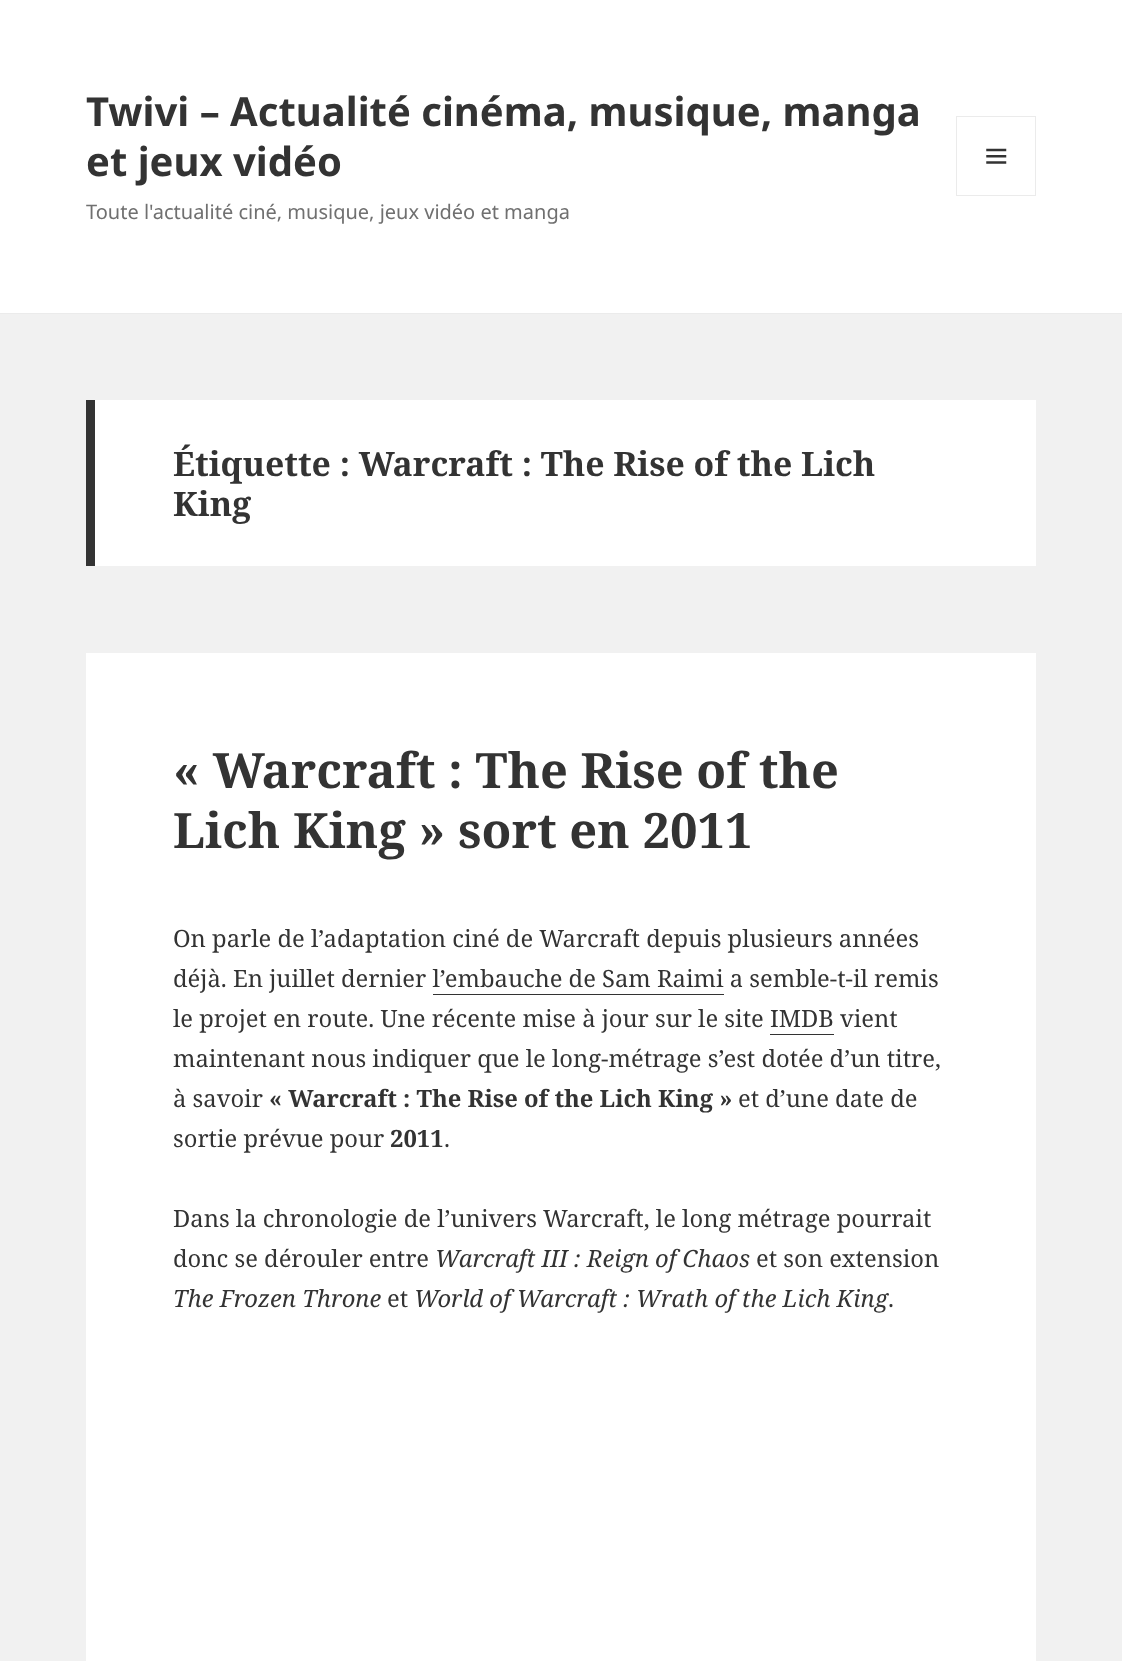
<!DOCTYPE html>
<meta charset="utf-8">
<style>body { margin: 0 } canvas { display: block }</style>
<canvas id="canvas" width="1122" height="1661"></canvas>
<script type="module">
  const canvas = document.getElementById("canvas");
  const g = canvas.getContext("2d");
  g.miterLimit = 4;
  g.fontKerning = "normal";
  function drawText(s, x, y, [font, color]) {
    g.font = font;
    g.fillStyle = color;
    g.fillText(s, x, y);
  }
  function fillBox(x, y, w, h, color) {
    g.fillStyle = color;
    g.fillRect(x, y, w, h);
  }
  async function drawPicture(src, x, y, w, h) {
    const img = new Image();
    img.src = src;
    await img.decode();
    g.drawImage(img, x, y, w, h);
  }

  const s1 = ["bold 40px Noto Sans", "#333333"];
  const s2 = ["20px Noto Sans", "#707070"];
  const s3 = ["bold 33.75px Noto Serif", "#333333"];
  const s4 = ["bold 48.75px Noto Serif", "#333333"];
  const s5 = ["23.75px Noto Serif", "#333333"];
  const s6 = ["bold 23.75px Noto Serif", "#333333"];
  const s7 = ["italic 23.75px Noto Serif", "#333333"];

  fillBox(0, 0, 1122, 1661, "#F1F1F1");
  fillBox(0, 0, 1122, 313, "#FFFFFF");
  fillBox(0, 313, 1122, 1, "#EBEBEB");
  drawText("Twivi – Actualité cinéma, musique, manga", 86, 126, s1);
  drawText("et jeux vidéo", 86, 176, s1);
  g.strokeStyle = "#EBEBEB";
  g.strokeRect(956.5, 116.5, 79, 79);
  await drawPicture("pic1.png", 986, 148, 21, 16);
  drawText("Toute l'actualité ciné, musique, jeux vidéo et manga", 86, 219, s2);
  fillBox(95, 400, 941, 166, "#FFFFFF");
  fillBox(86, 400, 9, 166, "#333333");
  drawText("Étiquette : Warcraft : The Rise of the Lich", 173, 476, s3);
  drawText("King", 173, 516, s3);
  fillBox(86, 653, 950, 1008, "#FFFFFF");
  drawText("« Warcraft : The Rise of the", 173, 788, s4);
  drawText("Lich King » sort en 2011", 173, 848, s4);
  drawText("On parle de l’adaptation ciné de Warcraft depuis plusieurs années", 173, 947, s5);
  drawText("déjà. En juillet dernier l’embauche de Sam Raimi a semble-t-il remis", 173, 987, s5);
  fillBox(433, 994, 291, 1, "#333333");
  drawText("le projet en route. Une récente mise à jour sur le site IMDB vient", 173, 1027, s5);
  fillBox(770, 1034, 64, 1, "#333333");
  drawText("maintenant nous indiquer que le long-métrage s’est dotée d’un titre,", 173, 1067, s5);
  drawText("à savoir", 173, 1107, s5);
  drawText("« Warcraft : The Rise of the Lich King »", 269, 1107, s6);
  drawText("et d’une date de", 738, 1107, s5);
  drawText("sortie prévue pour", 173, 1147, s5);
  drawText("2011", 390, 1147, s6);
  drawText(".", 444, 1147, s5);
  drawText("Dans la chronologie de l’univers Warcraft, le long métrage pourrait", 173, 1227, s5);
  drawText("donc se dérouler entre", 173, 1267, s5);
  drawText("Warcraft III : Reign of Chaos", 435, 1267, s7);
  drawText("et son extension", 756, 1267, s5);
  drawText("The Frozen Throne", 173, 1307, s7);
  drawText("et", 387, 1307, s5);
  drawText("World of Warcraft : Wrath of the Lich King", 414, 1307, s7);
  drawText(".", 888, 1307, s5);
</script>
